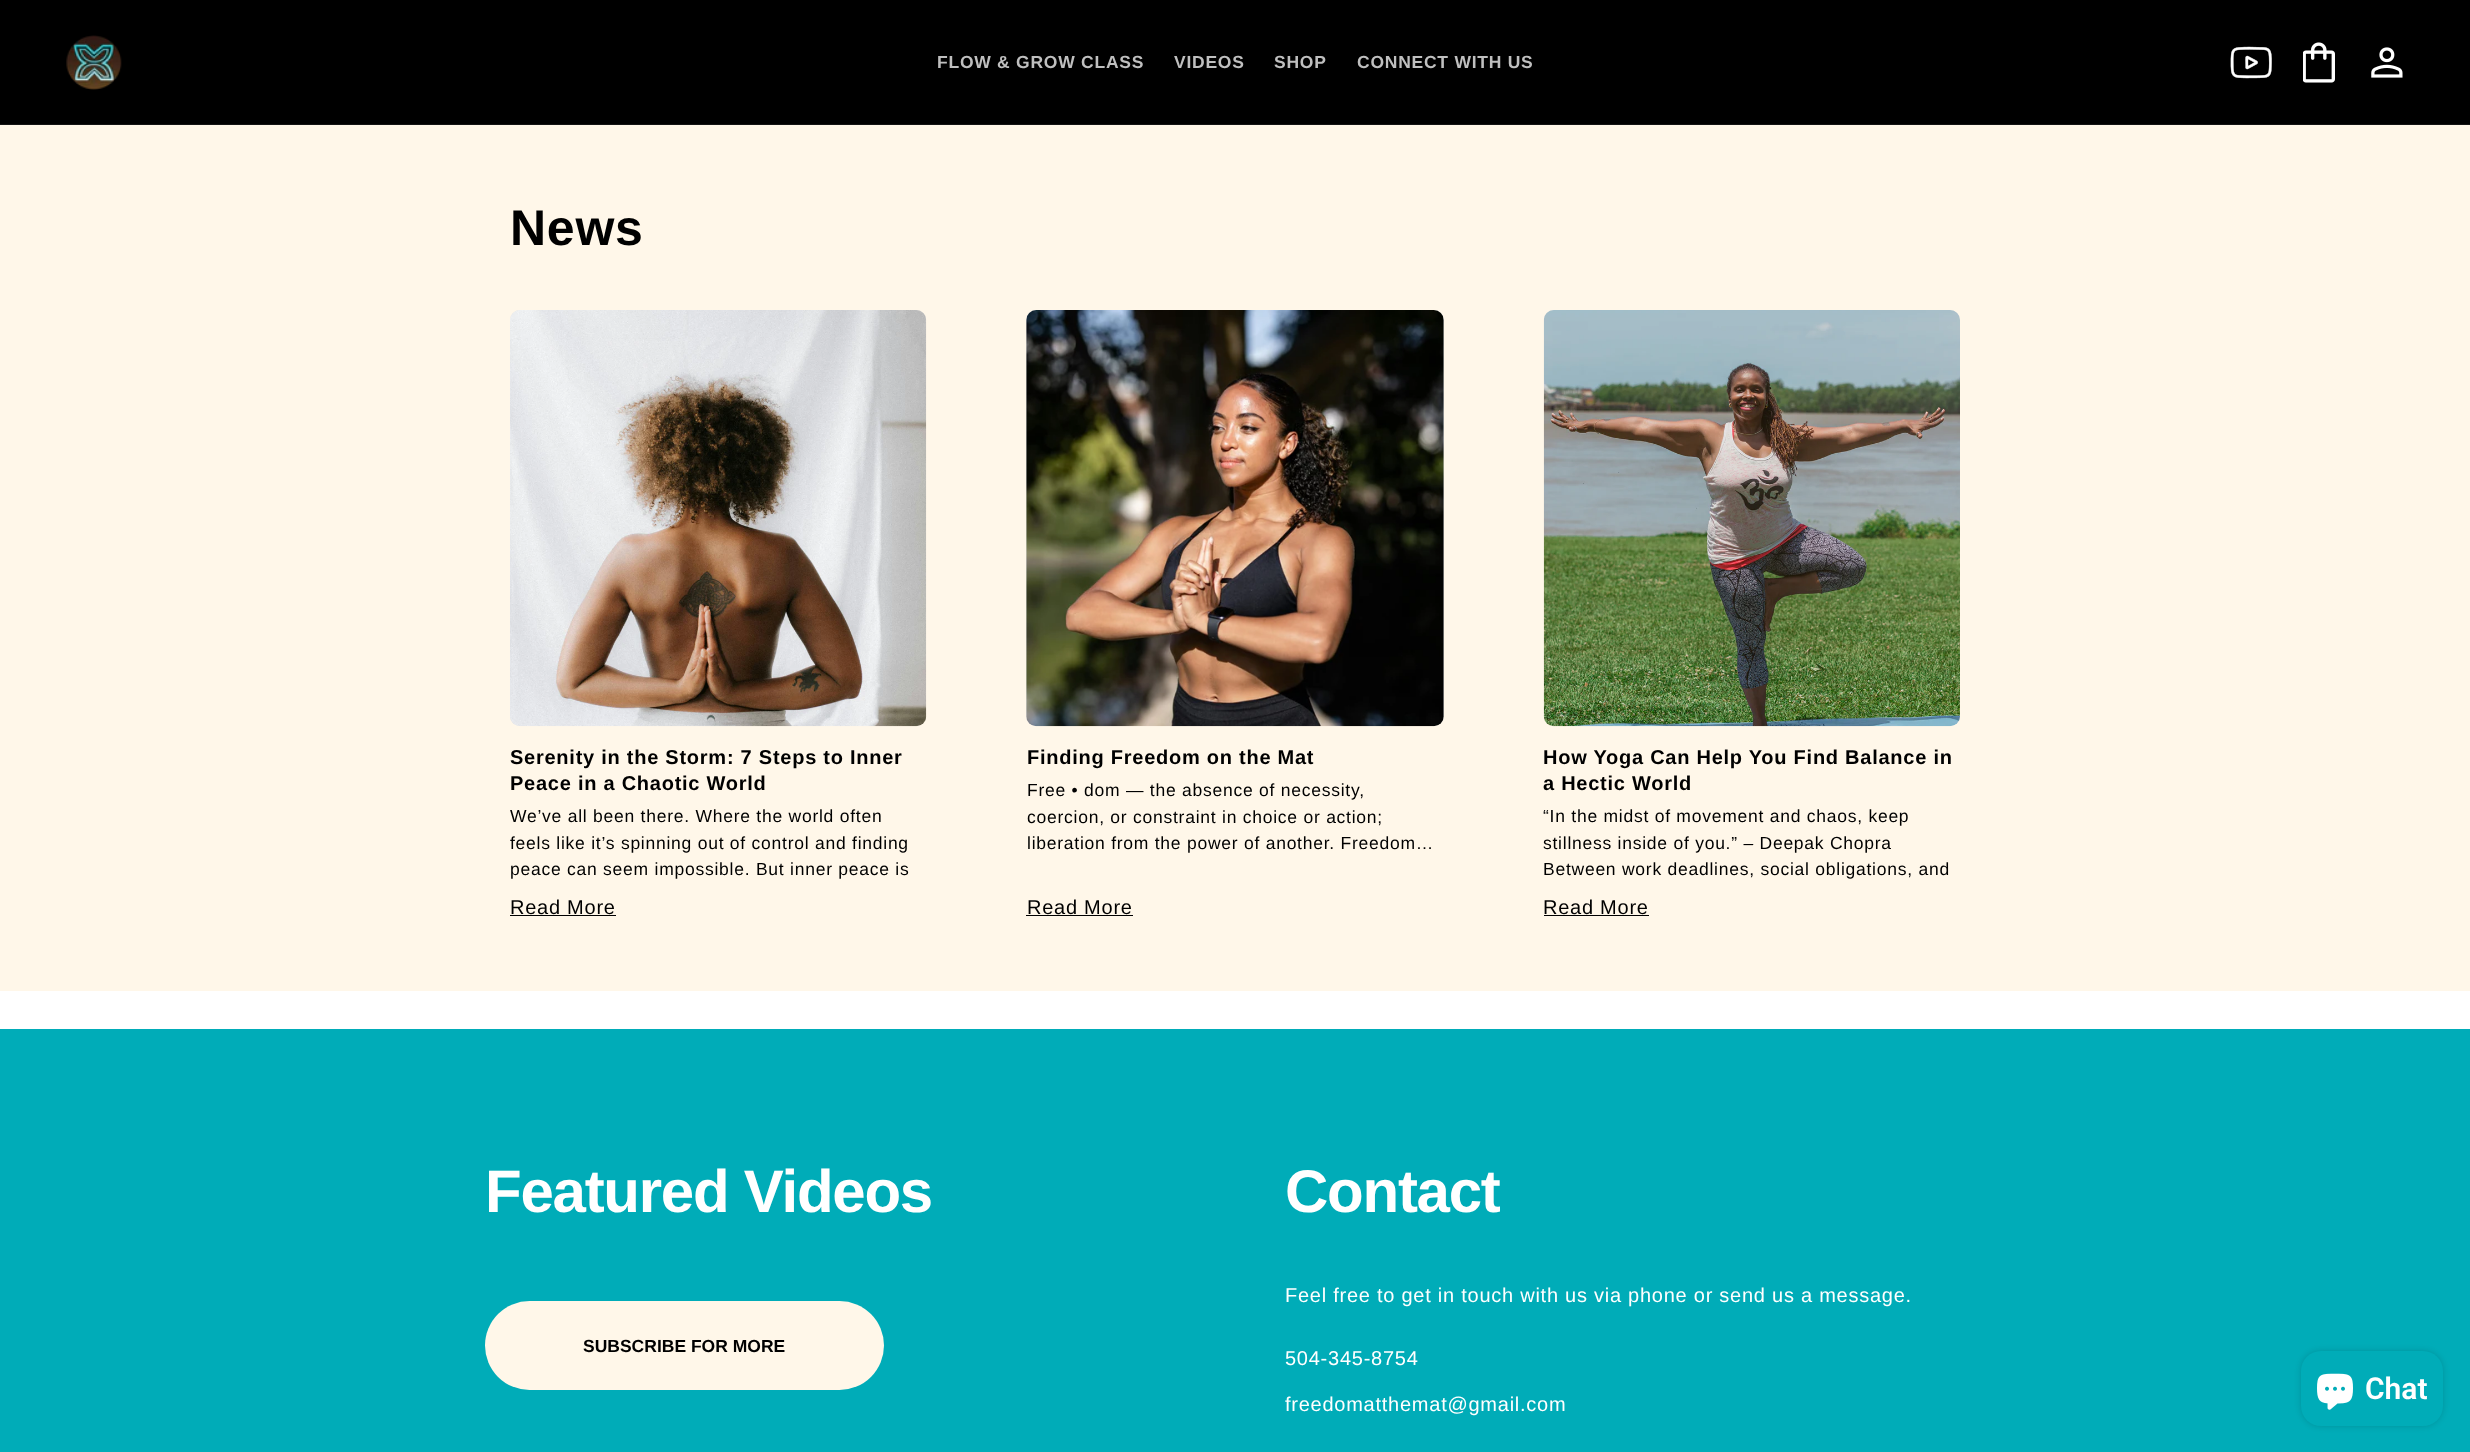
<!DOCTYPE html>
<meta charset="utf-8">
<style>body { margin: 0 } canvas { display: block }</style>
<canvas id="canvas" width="2470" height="1452"></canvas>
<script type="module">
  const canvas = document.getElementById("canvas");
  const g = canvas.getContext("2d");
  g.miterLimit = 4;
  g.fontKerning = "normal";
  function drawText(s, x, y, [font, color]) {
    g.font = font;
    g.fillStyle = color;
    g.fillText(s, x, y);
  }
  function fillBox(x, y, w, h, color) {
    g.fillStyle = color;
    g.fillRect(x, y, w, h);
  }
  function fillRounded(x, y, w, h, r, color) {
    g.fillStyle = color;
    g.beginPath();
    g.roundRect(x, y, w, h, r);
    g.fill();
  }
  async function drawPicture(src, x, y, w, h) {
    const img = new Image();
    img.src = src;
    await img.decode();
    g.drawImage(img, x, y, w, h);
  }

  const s1 = ["bold 17.5px Liberation Sans", "#BFBFBF"];
  const s2 = ["bold 50px Liberation Sans", "#000000"];
  const s3 = ["bold 20px Liberation Sans", "#000000"];
  const s4 = ["17.5px Liberation Sans", "#000000"];
  const s5 = ["20px Liberation Sans", "#000000"];
  const s6 = ["bold 60px Liberation Sans", "#FFFFFF"];
  const s7 = ["bold 17.5px Liberation Sans", "#000000"];
  const s8 = ["20px Liberation Sans", "#FFFFFF"];
  const s9 = ["600 30px Roboto", "#FFFFFF"];

  fillBox(0, 0, 2470, 1452, "#FFFFFF");
  fillBox(0, 0, 2470, 124, "#000000");
  fillBox(0, 124, 2470, 1, "#141414");
  await drawPicture("pic1.png", 66, 35, 56, 55);
  g.letterSpacing = "0.75px";
  drawText("FLOW & GROW CLASS", 937, 68, s1);
  drawText("VIDEOS", 1174, 68, s1);
  drawText("SHOP", 1274, 68, s1);
  drawText("CONNECT WITH US", 1357, 68, s1);
  await drawPicture("pic2.png", 2230, 46, 42, 33);
  await drawPicture("pic3.png", 2303, 42, 32, 41);
  await drawPicture("pic4.png", 2371, 47, 32, 31);
  fillBox(0, 125, 2470, 866, "#FFF7E9");
  drawText("News", 510, 245, s2);
  fillRounded(510, 310, 416, 416, 10, "#E5E5E5");
  await drawPicture("pic5.png", 510, 310, 417, 417);
  drawText("Serenity in the Storm: 7 Steps to Inner", 510, 764, s3);
  drawText("Peace in a Chaotic World", 510, 790, s3);
  drawText("We’ve all been there. Where the world often", 510, 822, s4);
  drawText("feels like it’s spinning out of control and finding", 510, 849, s4);
  drawText("peace can seem impossible. But inner peace is", 510, 875, s4);
  drawText("Read More", 510, 914, s5);
  fillBox(510, 915, 106, 1, "#000000");
  fillRounded(1026, 310, 418, 416, 10, "#E5E5E5");
  await drawPicture("pic6.png", 1026, 310, 418, 417);
  drawText("Finding Freedom on the Mat", 1027, 764, s3);
  drawText("Free • dom — the absence of necessity,", 1027, 796, s4);
  drawText("coercion, or constraint in choice or action;", 1027, 823, s4);
  drawText("liberation from the power of another. Freedom…", 1027, 849, s4);
  drawText("Read More", 1027, 914, s5);
  fillBox(1026, 915, 107, 1, "#000000");
  fillRounded(1544, 310, 416, 416, 10, "#E5E5E5");
  await drawPicture("pic7.png", 1543, 310, 417, 417);
  drawText("How Yoga Can Help You Find Balance in", 1543, 764, s3);
  drawText("a Hectic World", 1543, 790, s3);
  drawText("“In the midst of movement and chaos, keep", 1543, 822, s4);
  drawText("stillness inside of you.” – Deepak Chopra", 1543, 849, s4);
  drawText("Between work deadlines, social obligations, and", 1543, 875, s4);
  drawText("Read More", 1543, 914, s5);
  fillBox(1544, 915, 105, 1, "#000000");
  fillBox(0, 1029, 2470, 423, "#00ACB8");
  g.letterSpacing = "-1.25px";
  drawText("Featured Videos", 485, 1212, s6);
  fillRounded(485, 1301, 399, 89, 44.5, "#FFF7E9");
  g.letterSpacing = "0px";
  drawText("SUBSCRIBE FOR MORE", 583, 1352, s7);
  g.letterSpacing = "-1.25px";
  drawText("Contact", 1285, 1212, s6);
  g.letterSpacing = "0.75px";
  drawText("Feel free to get in touch with us via phone or send us a message.", 1285, 1302, s8);
  drawText("504-345-8754", 1285, 1365, s8);
  drawText("freedomatthemat@gmail.com", 1285, 1411, s8);
  g.fillStyle = "rgba(0, 0, 0, 0.15)";
  g.filter = "blur(3px)";
  g.beginPath();
  g.roundRect(2301, 1351, 142, 75, 20);
  g.fill();
  g.filter = "none";
  fillRounded(2301, 1351, 142, 75, 20, "#00ACB8");
  await drawPicture("pic8.png", 2317, 1373, 36, 37);
  g.letterSpacing = "0px";
  drawText("Chat", 2365, 1399, s9);
</script>
